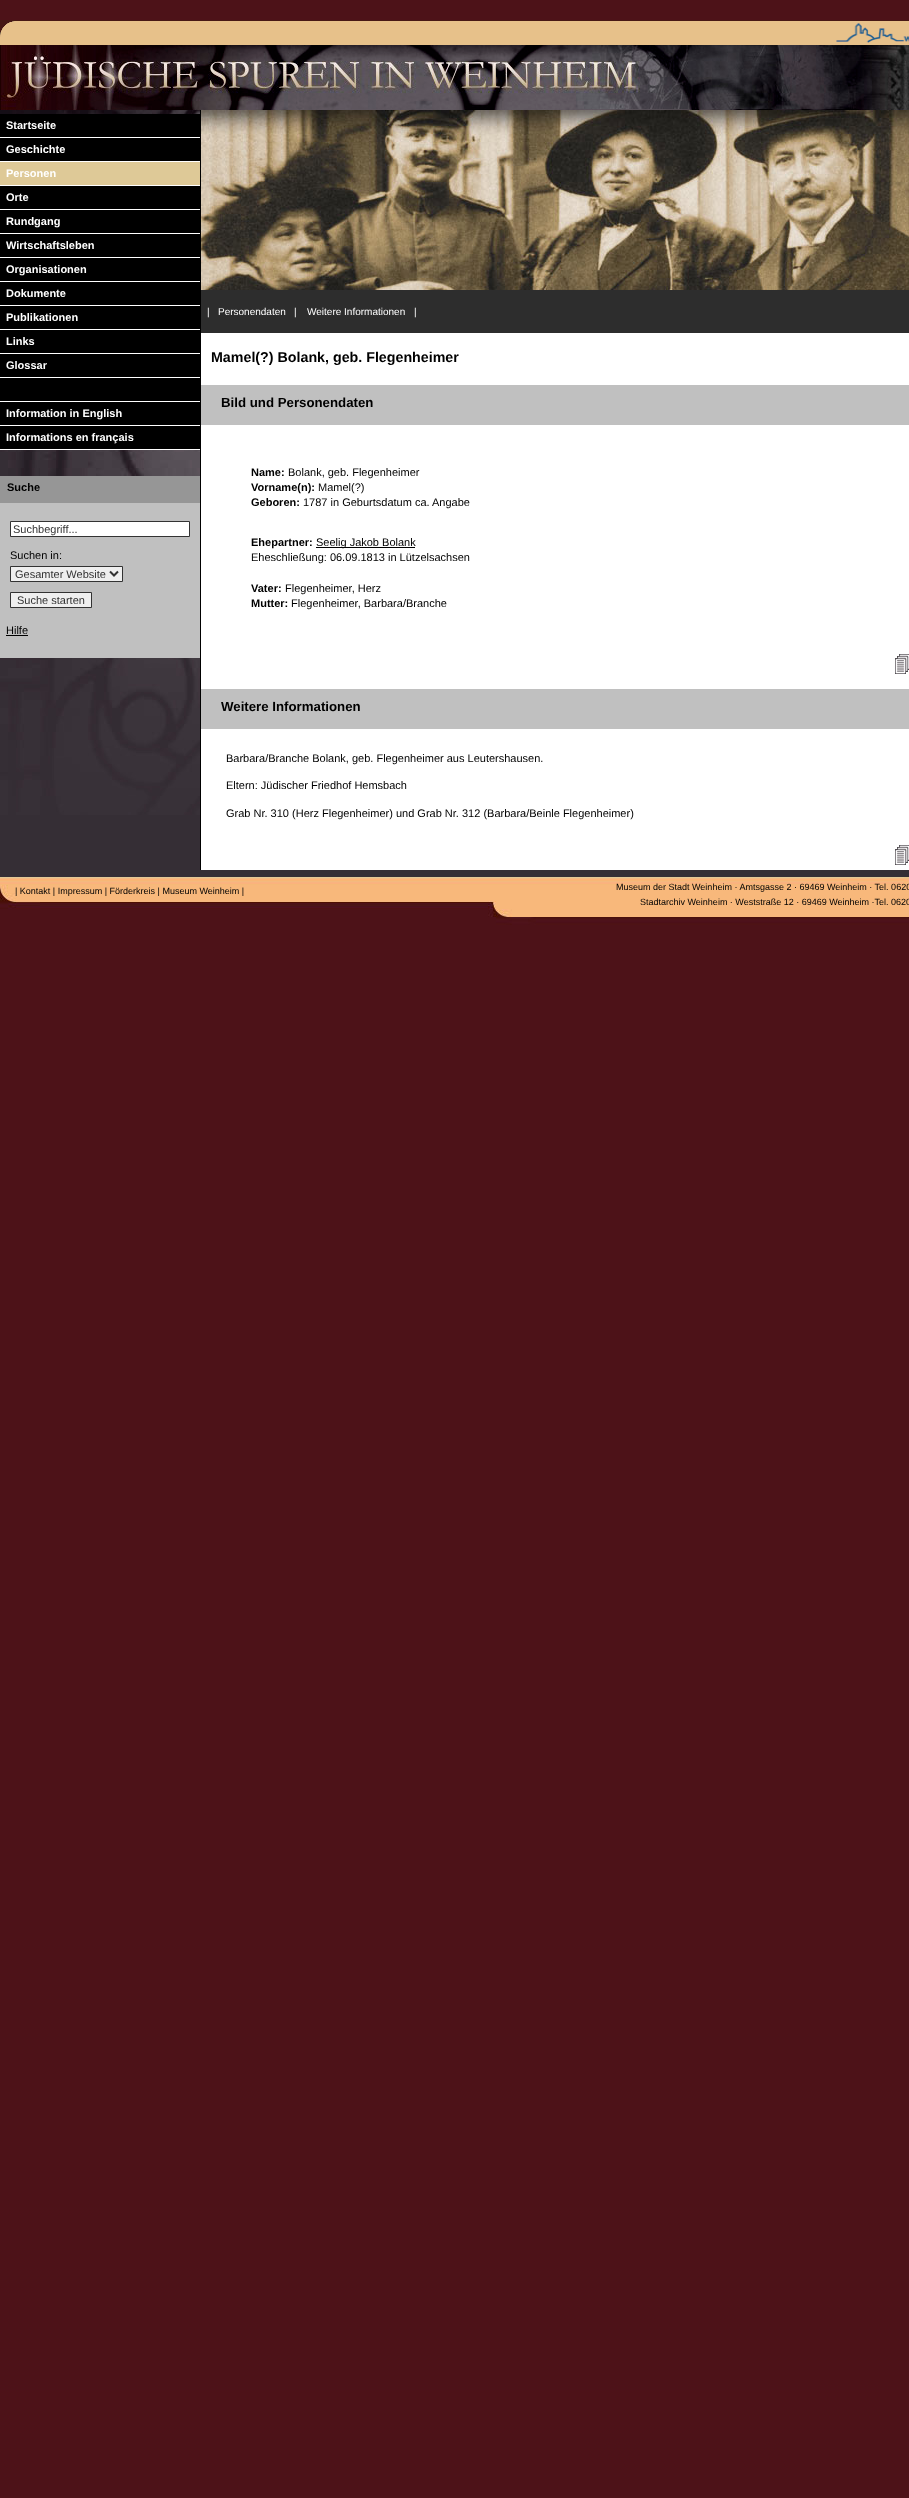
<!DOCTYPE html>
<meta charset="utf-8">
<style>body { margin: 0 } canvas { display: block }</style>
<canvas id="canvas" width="909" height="2498"></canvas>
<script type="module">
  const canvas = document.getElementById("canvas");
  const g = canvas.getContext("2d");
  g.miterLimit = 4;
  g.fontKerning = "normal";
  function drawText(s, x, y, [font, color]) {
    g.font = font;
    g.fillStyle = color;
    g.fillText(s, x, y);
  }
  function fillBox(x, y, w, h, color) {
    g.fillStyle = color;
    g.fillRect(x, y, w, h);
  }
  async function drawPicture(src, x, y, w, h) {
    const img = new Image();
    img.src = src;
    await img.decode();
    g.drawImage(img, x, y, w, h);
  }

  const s1 = ["bold 11px Liberation Sans", "#FFFFFF"];
  const s2 = ["bold 11px Liberation Sans", "#000000"];
  const s3 = ["11px Liberation Sans", "#333333"];
  const s4 = ["11px Liberation Sans", "#000000"];
  const s5 = ["10px Liberation Sans", "#FFFFFF"];
  const s6 = ["bold 14.25px Liberation Sans", "#000000"];
  const s7 = ["bold 13.25px Liberation Sans", "#000000"];
  const s8 = ["9px Liberation Sans", "#000000"];

  fillBox(0, 0, 909, 2498, "#4D1218");
  fillBox(0, 815, 909, 62, "#352E35");
  await drawPicture("pic1.png", 0, 110, 200, 705);
  await drawPicture("pic2.png", 0, 20, 909, 25);
  await drawPicture("pic3.png", 836, 23, 73, 20);
  await drawPicture("pic4.png", 0, 45, 909, 65);
  fillBox(0, 114, 200, 23, "#000000");
  fillBox(0, 137, 200, 1, "#FFFFFF");
  drawText("Startseite", 6, 129, s1);
  fillBox(0, 138, 200, 23, "#000000");
  fillBox(0, 161, 200, 1, "#FFFFFF");
  drawText("Geschichte", 6, 153, s1);
  fillBox(0, 162, 200, 23, "#DEC997");
  fillBox(0, 185, 200, 1, "#FFFFFF");
  drawText("Personen", 6, 177, s1);
  fillBox(0, 186, 200, 23, "#000000");
  fillBox(0, 209, 200, 1, "#FFFFFF");
  drawText("Orte", 6, 201, s1);
  fillBox(0, 210, 200, 23, "#000000");
  fillBox(0, 233, 200, 1, "#FFFFFF");
  drawText("Rundgang", 6, 225, s1);
  fillBox(0, 234, 200, 23, "#000000");
  fillBox(0, 257, 200, 1, "#FFFFFF");
  drawText("Wirtschaftsleben", 6, 249, s1);
  fillBox(0, 258, 200, 23, "#000000");
  fillBox(0, 281, 200, 1, "#FFFFFF");
  drawText("Organisationen", 6, 273, s1);
  fillBox(0, 282, 200, 23, "#000000");
  fillBox(0, 305, 200, 1, "#FFFFFF");
  drawText("Dokumente", 6, 297, s1);
  fillBox(0, 306, 200, 23, "#000000");
  fillBox(0, 329, 200, 1, "#FFFFFF");
  drawText("Publikationen", 6, 321, s1);
  fillBox(0, 330, 200, 23, "#000000");
  fillBox(0, 353, 200, 1, "#FFFFFF");
  drawText("Links", 6, 345, s1);
  fillBox(0, 354, 200, 23, "#000000");
  fillBox(0, 377, 200, 1, "#FFFFFF");
  drawText("Glossar", 6, 369, s1);
  fillBox(0, 378, 200, 23, "#000000");
  fillBox(0, 401, 200, 1, "#FFFFFF");
  fillBox(0, 402, 200, 23, "#000000");
  fillBox(0, 425, 200, 1, "#FFFFFF");
  drawText("Information in English", 6, 417, s1);
  fillBox(0, 426, 200, 23, "#000000");
  fillBox(0, 449, 200, 1, "#FFFFFF");
  drawText("Informations en français", 6, 441, s1);
  fillBox(0, 503, 200, 155, "#C0C0C0");
  fillBox(0, 476, 200, 27, "#969696");
  drawText("Suche", 7, 491, s2);
  g.fillStyle = "#FFFFFF";
  g.beginPath();
  g.rect(10.5, 521.5, 179, 15);
  g.fill();
  g.strokeStyle = "#333333";
  g.stroke();
  drawText("Suchbegriff...", 13, 533, s3);
  drawText("Suchen in:", 10, 559, s4);
  g.fillStyle = "#EFEFEF";
  g.beginPath();
  g.rect(10.5, 566.5, 112, 15);
  g.fill();
  g.stroke();
  g.beginPath();
  g.moveTo(110, 571.5);
  g.lineTo(114, 575.5);
  g.lineTo(118, 571.5);
  g.lineWidth = 2;
  g.stroke();
  drawText("Gesamter Website", 15, 578, s3);
  g.fillStyle = "#EFEFEF";
  g.beginPath();
  g.rect(10.5, 592.5, 81, 15);
  g.fill();
  g.lineWidth = 1;
  g.stroke();
  drawText("Suche starten", 17, 604, s3);
  drawText("Hilfe", 6, 634, s4);
  fillBox(6, 635, 22, 1, "#000000");
  fillBox(201, 333, 708, 537, "#FFFFFF");
  await drawPicture("pic5.png", 201, 110, 708, 180);
  fillBox(200, 110, 1, 760, "#000000");
  fillBox(201, 290, 708, 43, "#2D2D2D");
  drawText("|", 207, 315, s5);
  drawText("Personendaten", 218, 315, s5);
  drawText("|", 294, 315, s5);
  drawText("Weitere Informationen", 307, 315, s5);
  drawText("|", 414, 315, s5);
  drawText("Mamel(?) Bolank, geb. Flegenheimer", 211, 362, s6);
  fillBox(201, 385, 708, 40, "#C0C0C0");
  drawText("Bild und Personendaten", 221, 407, s7);
  drawText("Name:", 251, 476, s2);
  drawText("Bolank, geb. Flegenheimer", 288, 476, s4);
  drawText("Vorname(n):", 251, 491, s2);
  drawText("Mamel(?)", 318, 491, s4);
  drawText("Geboren:", 251, 506, s2);
  drawText("1787 in Geburtsdatum ca. Angabe", 303, 506, s4);
  drawText("Ehepartner:", 251, 546, s2);
  fillBox(316, 547, 99, 1, "#000000");
  drawText("Seelig Jakob Bolank", 316, 546, s4);
  drawText("Eheschließung: 06.09.1813 in Lützelsachsen", 251, 561, s4);
  drawText("Vater:", 251, 592, s2);
  drawText("Flegenheimer, Herz", 285, 592, s4);
  drawText("Mutter:", 251, 607, s2);
  drawText("Flegenheimer, Barbara/Branche", 291, 607, s4);
  await drawPicture("pic6.png", 895, 654, 14, 20);
  fillBox(201, 689, 708, 40, "#C0C0C0");
  drawText("Weitere Informationen", 221, 711, s7);
  drawText("Barbara/Branche Bolank, geb. Flegenheimer aus Leutershausen.", 226, 762, s4);
  drawText("Eltern: Jüdischer Friedhof Hemsbach", 226, 789, s4);
  drawText("Grab Nr. 310 (Herz Flegenheimer) und Grab Nr. 312 (Barbara/Beinle Flegenheimer)", 226, 817, s4);
  await drawPicture("pic6.png", 895, 845, 14, 20);
  await drawPicture("pic7.png", 0, 877, 909, 48);
  drawText("| Kontakt | Impressum | Förderkreis | Museum Weinheim |", 15, 894, s8);
  drawText("Museum der Stadt Weinheim · Amtsgasse 2 · 69469 Weinheim · Tel. 0620", 616, 890, s8);
  drawText("Stadtarchiv Weinheim · Weststraße 12 · 69469 Weinheim ·Tel. 0620", 640, 905, s8);
</script>
